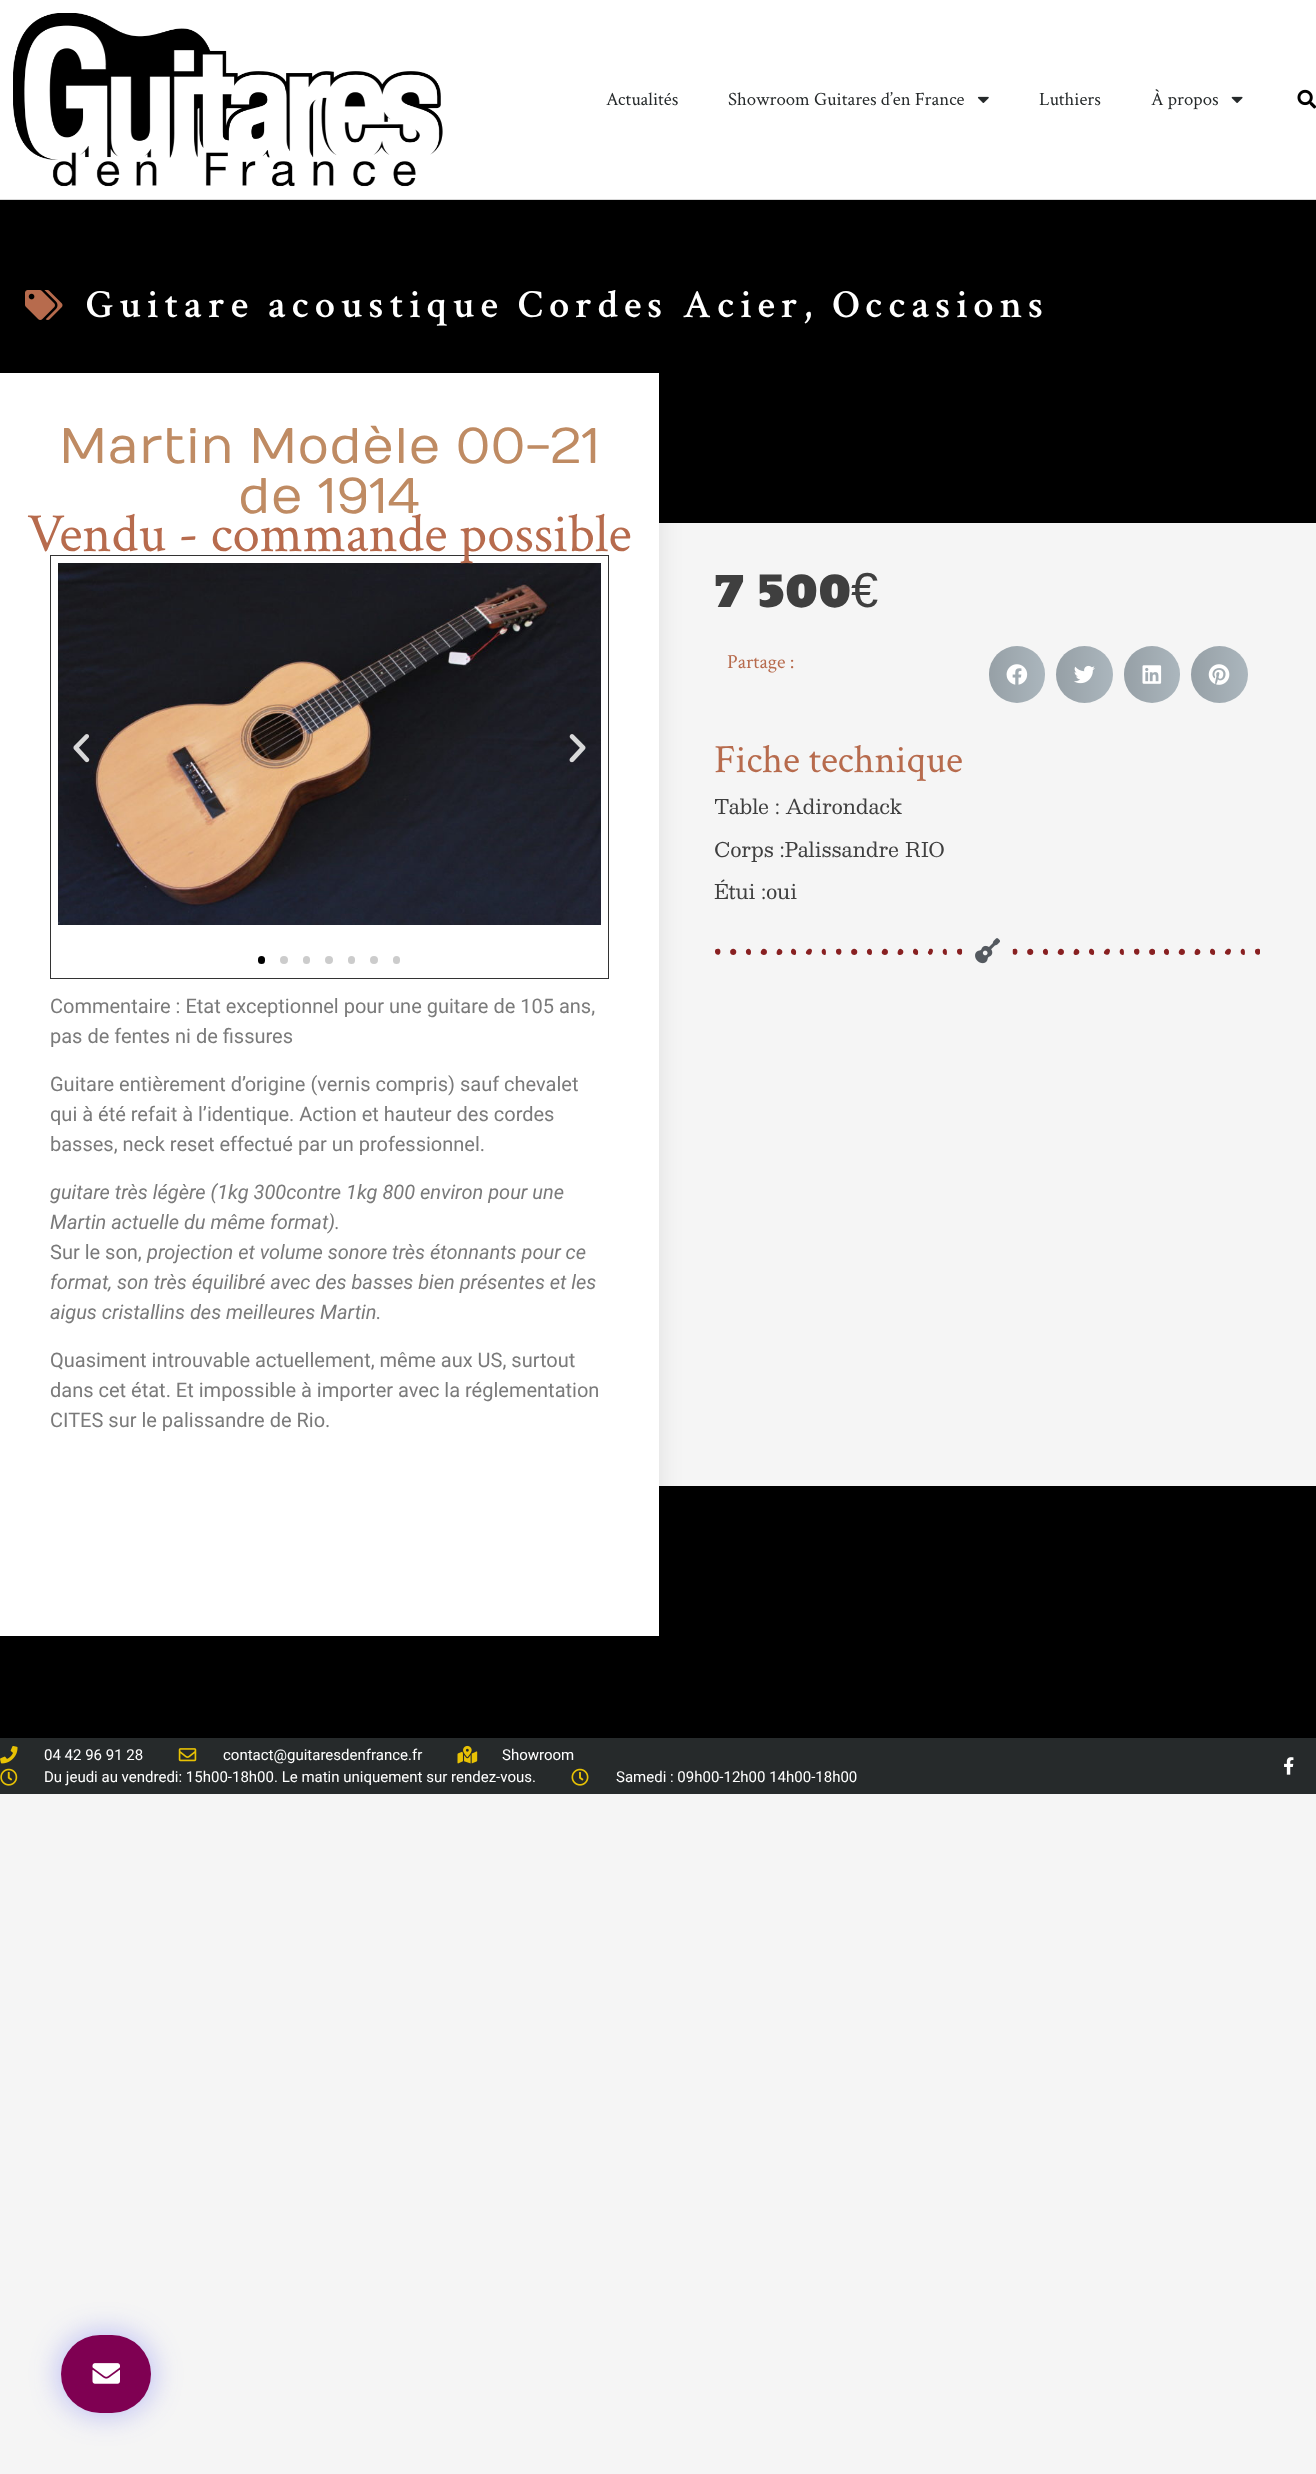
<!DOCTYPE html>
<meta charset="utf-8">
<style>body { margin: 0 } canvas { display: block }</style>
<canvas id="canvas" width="1316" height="2474"></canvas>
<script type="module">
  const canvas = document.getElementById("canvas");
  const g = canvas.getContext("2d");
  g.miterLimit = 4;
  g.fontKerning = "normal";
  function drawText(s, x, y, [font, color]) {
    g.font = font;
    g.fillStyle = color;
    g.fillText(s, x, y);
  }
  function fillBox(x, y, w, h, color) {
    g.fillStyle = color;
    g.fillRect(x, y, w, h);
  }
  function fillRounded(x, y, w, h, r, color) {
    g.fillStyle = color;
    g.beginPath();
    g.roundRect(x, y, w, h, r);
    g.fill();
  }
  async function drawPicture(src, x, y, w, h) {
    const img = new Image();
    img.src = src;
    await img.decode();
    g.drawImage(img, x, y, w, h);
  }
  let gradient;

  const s1 = ["18.75px Crimson Text", "#262A2B"];
  const s2 = ["600 40px Crimson Text", "#FFFFFF"];
  const s3 = ["50px Numans", "#BF8B63"];
  const s4 = ["55px Crimson Text", "#B76B4D"];
  const s5 = ["20px Roboto", "#7A7A7A"];
  const s6 = ["italic 20px Roboto", "#7A7A7A"];
  const s7 = ["49px Angkor", "#3F3F3F"];
  const s8 = ["49px Liberation Sans", "#3F3F3F"];
  const s9 = ["20px Crimson Text", "#B76B4D"];
  const s10 = ["40px Crimson Text", "#B76B4D"];
  const s11 = ["20px Besley", "#3F3F3F"];
  const s12 = ["15px Roboto", "#FFFFFF"];

  fillBox(0, 0, 1316, 2474, "#F5F5F5");
  fillBox(0, 0, 1316, 199, "#FFFFFF");
  fillBox(0, 199, 1316, 1, "#D8D8D8");
  await drawPicture("pic1.png", 13, 13, 430, 174);
  drawText("Actualités", 606, 105, s1);
  drawText("Showroom Guitares d’en France", 728, 105, s1);
  await drawPicture("pic2.png", 977, 96, 12, 7);
  drawText("Luthiers", 1039, 105, s1);
  drawText("À propos", 1151, 105, s1);
  await drawPicture("pic3.png", 1231, 96, 12, 7);
  await drawPicture("pic4.png", 1297, 89, 19, 20);
  fillBox(0, 200, 1316, 323, "#000000");
  await drawPicture("pic5.png", 25, 290, 38, 30);
  g.letterSpacing = "6.1px";
  drawText("Guitare acoustique Cordes Acier, Occasions", 86, 317, s2);
  g.fillStyle = "rgba(53, 56, 240, 0.35)";
  g.filter = "blur(15.5px)";
  g.beginPath();
  g.roundRect(61, 2335, 90, 78, 39);
  g.fill();
  g.filter = "none";
  fillRounded(61, 2335, 90, 78, 39, "#7F0052");
  await drawPicture("pic6.png", 92, 2363, 28, 21);
  fillBox(0, 1486, 1316, 252, "#000000");
  g.fillStyle = "rgba(0, 0, 0, 0.09)";
  g.filter = "blur(12.5px)";
  g.beginPath();
  g.rect(0, 373, 659, 1263);
  g.fill();
  g.filter = "none";
  fillBox(0, 373, 659, 1263, "#FFFFFF");
  g.letterSpacing = "0px";
  drawText("Martin Modèle 00-21", 59, 463, s3);
  drawText("de 1914", 238, 513, s3);
  g.strokeStyle = "#333333";
  g.strokeRect(50.5, 555.5, 558, 423);
  await drawPicture("pic7.png", 58, 563, 543, 362);
  drawText("Vendu - commande possible", 27, 551, s4);
  await drawPicture("pic8.png", 73, 734, 17, 29);
  await drawPicture("pic9.png", 569, 734, 17, 29);
  fillRounded(258, 956, 7, 8, 3.5, "#000000");
  g.fillStyle = "#CCCCCC";
  g.beginPath();
  g.arc(284, 960, 4, 0, Math.PI * 2);
  g.fill();
  fillRounded(303, 956, 7, 8, 3.5, "#CCCCCC");
  g.beginPath();
  g.arc(329, 960, 4, 0, Math.PI * 2);
  g.fill();
  fillRounded(348, 956, 7, 8, 3.5, "#CCCCCC");
  g.beginPath();
  g.arc(374, 960, 4, 0, Math.PI * 2);
  g.fill();
  fillRounded(393, 956, 7, 8, 3.5, "#CCCCCC");
  drawText("Commentaire : Etat exceptionnel pour une guitare de 105 ans,", 50, 1013, s5);
  drawText("pas de fentes ni de fissures", 50, 1043, s5);
  drawText("Guitare entièrement d’origine (vernis compris) sauf chevalet", 50, 1091, s5);
  drawText("qui à été refait à l’identique. Action et hauteur des cordes", 50, 1121, s5);
  drawText("basses, neck reset effectué par un professionnel.", 50, 1151, s5);
  drawText("guitare très légère (1kg 300contre 1kg 800 environ pour une", 50, 1199, s6);
  drawText("Martin actuelle du même format).", 50, 1229, s6);
  drawText("Sur le son,", 50, 1259, s5);
  drawText("projection et volume sonore très étonnants pour ce", 147, 1259, s6);
  drawText("format, son très équilibré avec des basses bien présentes et les", 50, 1289, s6);
  drawText("aigus cristallins des meilleures Martin.", 50, 1319, s6);
  drawText("Quasiment introuvable actuellement, même aux US, surtout", 50, 1367, s5);
  drawText("dans cet état. Et impossible à importer avec la réglementation", 50, 1397, s5);
  drawText("CITES sur le palissandre de Rio.", 50, 1427, s5);
  drawText("7 500", 714, 607, s7);
  drawText("€", 851, 607, s8);
  drawText("Partage :", 727, 668, s9);
  fillRounded(989, 646, 56, 57, 28, "#ABB6BD");
  gradient = g.createLinearGradient(989, 674, 1045, 674);
  gradient.addColorStop(0, "rgba(0, 0, 0, 0.12)");
  gradient.addColorStop(1, "rgba(0, 0, 0, 0)");
  g.fillStyle = gradient;
  g.beginPath();
  g.roundRect(989, 646, 56, 57, 28);
  g.fill();
  await drawPicture("pic10.png", 1006, 664, 22, 21);
  g.fillStyle = "#ABB6BD";
  g.beginPath();
  g.arc(1084.5, 674.5, 28.5, 0, Math.PI * 2);
  g.fill();
  gradient = g.createLinearGradient(1056, 674, 1113, 674);
  gradient.addColorStop(0, "rgba(0, 0, 0, 0.12)");
  gradient.addColorStop(1, "rgba(0, 0, 0, 0)");
  g.fillStyle = gradient;
  g.beginPath();
  g.arc(1084.5, 674.5, 28.5, 0, Math.PI * 2);
  g.fill();
  await drawPicture("pic11.png", 1074, 665, 21, 19);
  fillRounded(1124, 646, 56, 57, 28, "#ABB6BD");
  gradient = g.createLinearGradient(1124, 674, 1180, 674);
  gradient.addColorStop(0, "rgba(0, 0, 0, 0.12)");
  gradient.addColorStop(1, "rgba(0, 0, 0, 0)");
  g.fillStyle = gradient;
  g.beginPath();
  g.roundRect(1124, 646, 56, 57, 28);
  g.fill();
  await drawPicture("pic12.png", 1142, 665, 20, 19);
  g.fillStyle = "#ABB6BD";
  g.beginPath();
  g.arc(1219.5, 674.5, 28.5, 0, Math.PI * 2);
  g.fill();
  gradient = g.createLinearGradient(1191, 674, 1248, 674);
  gradient.addColorStop(0, "rgba(0, 0, 0, 0.12)");
  gradient.addColorStop(1, "rgba(0, 0, 0, 0)");
  g.fillStyle = gradient;
  g.beginPath();
  g.arc(1219.5, 674.5, 28.5, 0, Math.PI * 2);
  g.fill();
  await drawPicture("pic13.png", 1208, 664, 22, 21);
  drawText("Fiche technique", 714, 772, s10);
  drawText("Table : Adirondack", 714, 814, s11);
  drawText("Corps :Palissandre RIO", 714, 857, s11);
  drawText("Étui :oui", 714, 899, s11);
  await drawPicture("pic14.png", 715, 948, 248, 7);
  await drawPicture("pic15.png", 975, 938, 25, 26);
  await drawPicture("pic16.png", 1012, 948, 248, 7);
  fillBox(0, 1738, 1316, 56, "#262A2B");
  await drawPicture("pic17.png", 0, 1746, 18, 18);
  drawText("04 42 96 91 28", 44, 1760, s12);
  await drawPicture("pic18.png", 178, 1748, 19, 14);
  drawText("contact@guitaresdenfrance.fr", 223, 1760, s12);
  await drawPicture("pic19.png", 457, 1745, 21, 19);
  drawText("Showroom", 502, 1760, s12);
  await drawPicture("pic20.png", 0, 1768, 18, 18);
  drawText("Du jeudi au vendredi: 15h00-18h00. Le matin uniquement sur rendez-vous.", 44, 1782, s12);
  await drawPicture("pic21.png", 571, 1768, 18, 18);
  drawText("Samedi : 09h00-12h00 14h00-18h00", 616, 1782, s12);
  await drawPicture("pic22.png", 1284, 1757, 10, 18);
</script>
